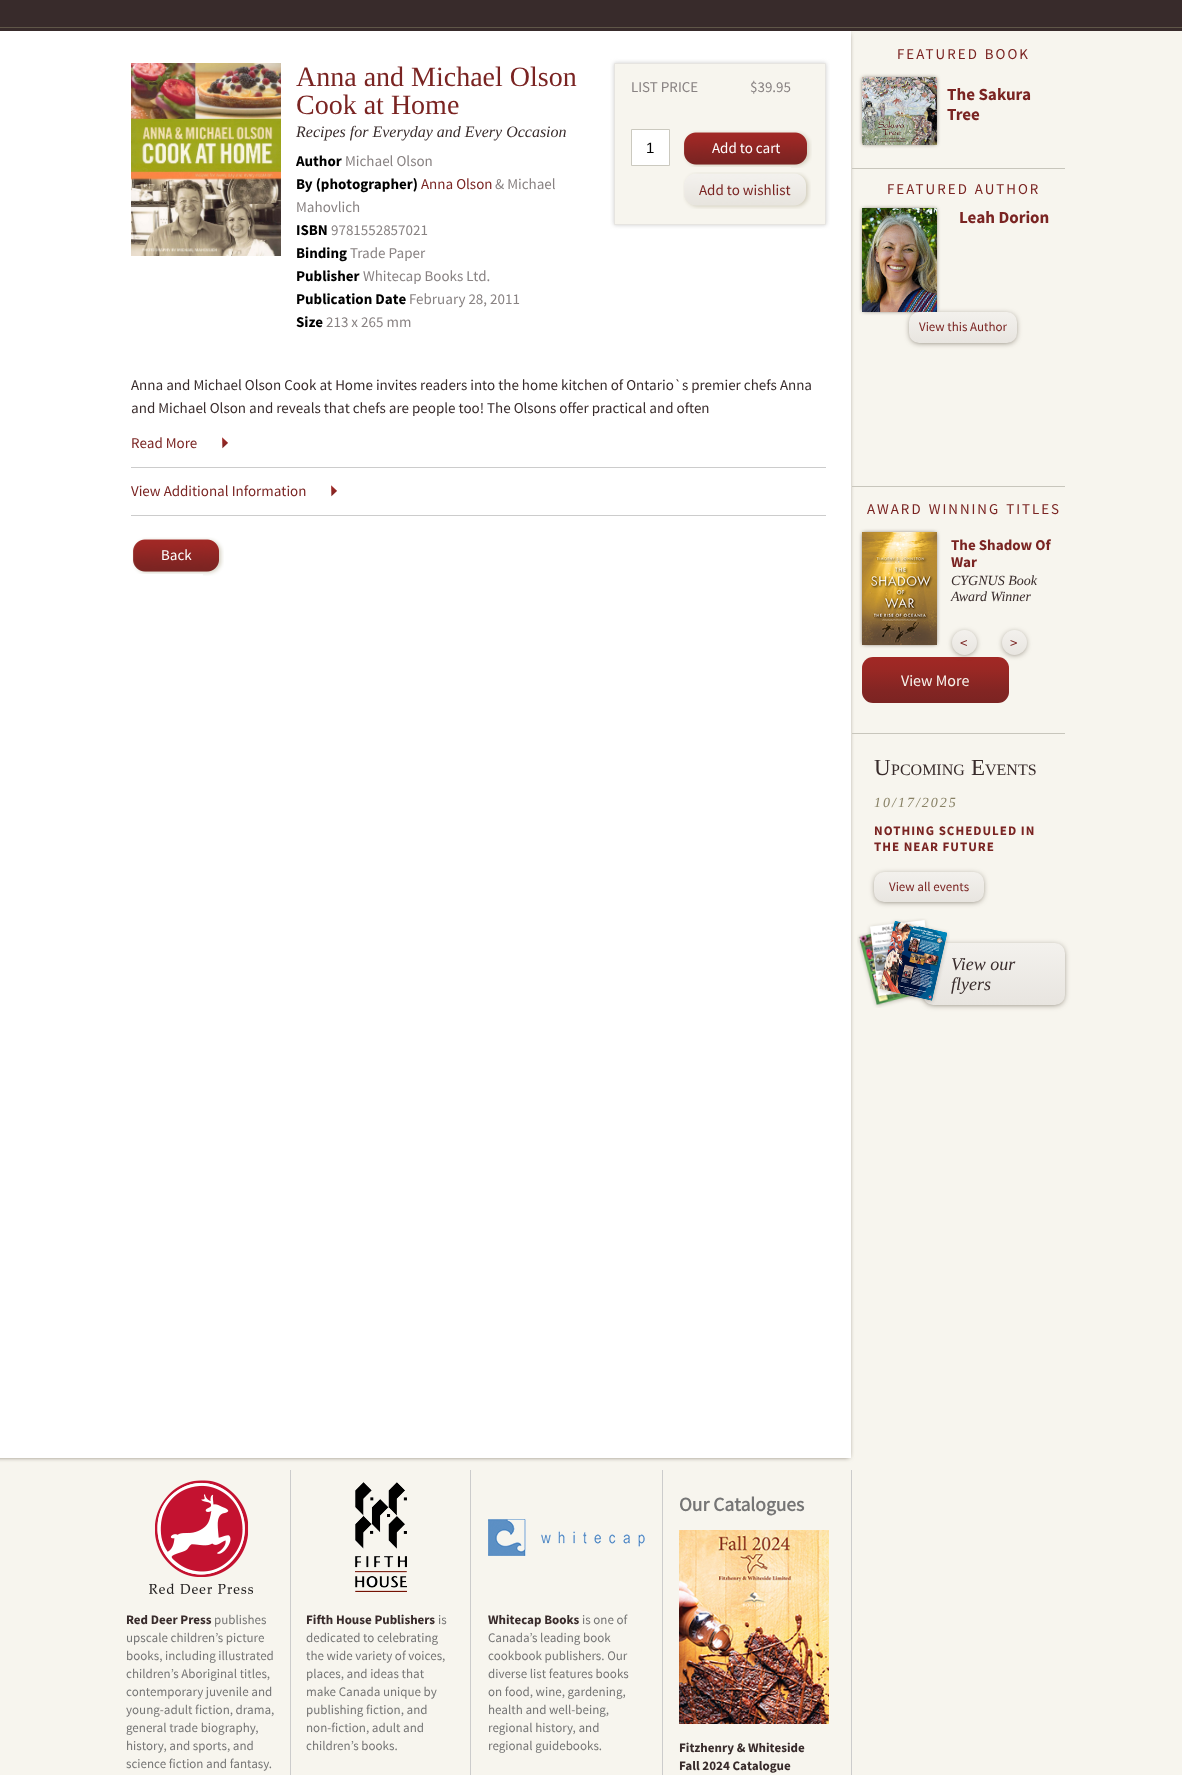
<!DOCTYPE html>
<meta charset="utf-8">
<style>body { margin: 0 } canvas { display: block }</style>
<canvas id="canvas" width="1182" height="1775"></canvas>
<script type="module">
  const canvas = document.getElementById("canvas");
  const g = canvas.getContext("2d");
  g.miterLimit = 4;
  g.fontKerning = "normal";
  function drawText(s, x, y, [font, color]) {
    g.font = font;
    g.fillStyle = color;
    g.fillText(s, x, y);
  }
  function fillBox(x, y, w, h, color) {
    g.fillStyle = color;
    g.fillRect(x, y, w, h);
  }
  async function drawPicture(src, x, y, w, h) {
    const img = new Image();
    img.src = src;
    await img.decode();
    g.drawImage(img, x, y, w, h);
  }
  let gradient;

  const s1 = ["28px Liberation Serif", "#7A2422"];
  const s2 = ["italic 16px Liberation Serif", "#382B2B"];
  const s3 = ["bold 15px Source Sans Pro", "#000000"];
  const s4 = ["15px Source Sans Pro", "#888282"];
  const s5 = ["15px Source Sans Pro", "#7A2422"];
  const s6 = ["15px Liberation Sans", "#000000"];
  const s7 = ["15px Source Sans Pro", "#FFFFFF"];
  const s8 = ["15px Source Sans Pro", "#382B2B"];
  const s9 = ["bold 17px Source Sans Pro", "#7A2422"];
  const s10 = ["13px Source Sans Pro", "#7A2422"];
  const s11 = ["bold 15px Source Sans Pro", "#7A2422"];
  const s12 = ["italic 14px Liberation Serif", "#382B2B"];
  const s13 = ["16px Source Sans Pro", "#F7F5EE"];
  const s14 = ["23px Liberation Serif", "#382B2B"];
  const s15 = ["16px Liberation Serif", "#382B2B"];
  const s16 = ["italic 14px Liberation Serif", "#888165"];
  const s17 = ["bold 13px Source Sans Pro", "#7A2422"];
  const s18 = ["italic 18px Liberation Serif", "#382B2B"];
  const s19 = ["bold 13px Source Sans Pro", "#382B2B"];
  const s20 = ["13px Source Sans Pro", "#757575"];
  const s21 = ["bold 19.5px 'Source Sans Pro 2'", "#757575"];

  fillBox(0, 0, 1182, 1775, "#F7F5EE");
  g.fillStyle = "#5F5648";
  g.filter = "blur(2.5px)";
  g.beginPath();
  g.rect(-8, 34, 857, 1423);
  g.fill();
  g.filter = "none";
  fillBox(0, 0, 1182, 31, "#382B2B");
  fillBox(0, 27, 1182, 1, "#5F5648");
  fillBox(0, 31, 851, 1427, "#FFFFFF");
  await drawPicture("pic1.png", 131, 63, 150, 193);
  drawText("Anna and Michael Olson", 296, 86, s1);
  drawText("Cook at Home", 296, 114, s1);
  drawText("Recipes for Everyday and Every Occasion", 296, 137, s2);
  drawText("Author", 296, 166, s3);
  drawText("Michael Olson", 345, 166, s4);
  drawText("By (photographer)", 296, 189, s3);
  drawText("Anna Olson", 421, 189, s5);
  drawText("& Michael", 495, 189, s4);
  drawText("Mahovlich", 296, 212, s4);
  drawText("ISBN", 296, 235, s3);
  drawText("9781552857021", 331, 235, s4);
  drawText("Binding", 296, 258, s3);
  drawText("Trade Paper", 350, 258, s4);
  drawText("Publisher", 296, 281, s3);
  drawText("Whitecap Books Ltd.", 363, 281, s4);
  drawText("Publication Date", 296, 304, s3);
  drawText("February 28, 2011", 409, 304, s4);
  drawText("Size", 296, 327, s3);
  drawText("213 x 265 mm", 326, 327, s4);
  g.fillStyle = "#CCCCCC";
  g.filter = "blur(2px)";
  g.beginPath();
  g.rect(614, 63, 212, 162);
  g.fill();
  g.filter = "none";
  g.fillStyle = "#F7F5EE";
  g.beginPath();
  g.rect(614.5, 63.5, 211, 161);
  g.fill();
  g.strokeStyle = "#E6E4E0";
  g.stroke();
  drawText("LIST PRICE", 631, 92, s4);
  drawText("$39.95", 750, 92, s4);
  g.fillStyle = "#FFFFFF";
  g.beginPath();
  g.rect(631.5, 129.5, 38, 36);
  g.fill();
  g.strokeStyle = "#CBC9BF";
  g.stroke();
  drawText("1", 646, 153, s6);
  await drawPicture("pic2.png", 683, 130, 108, 37);
  drawText("Add to cart", 712, 153, s7);
  await drawPicture("pic3.png", 791, 130, 21, 38);
  await drawPicture("pic4.png", 683, 172, 108, 37);
  drawText("Add to wishlist", 699, 195, s5);
  await drawPicture("pic5.png", 791, 172, 20, 37);
  drawText("Anna and Michael Olson Cook at Home invites readers into the home kitchen of Ontario`s premier chefs Anna", 131, 390, s8);
  drawText("and Michael Olson and reveals that chefs are people too! The Olsons offer practical and often", 131, 413, s8);
  fillBox(131, 467, 695, 1, "#CCCCCC");
  drawText("Read More", 131, 448, s5);
  await drawPicture("pic6.png", 222, 437, 6, 12);
  fillBox(131, 515, 695, 1, "#CCCCCC");
  drawText("View Additional Information", 131, 496, s5);
  await drawPicture("pic6.png", 331, 485, 6, 12);
  await drawPicture("pic7.png", 132, 537, 71, 37);
  drawText("Back", 161, 560, s7);
  await drawPicture("pic8.png", 203, 537, 21, 39);
  fillBox(852, 168, 213, 1, "#C8C6BC");
  g.letterSpacing = "2px";
  g.wordSpacing = "1px";
  drawText("FEATURED BOOK", 897, 59, s5);
  g.fillStyle = "#5F5648";
  g.filter = "blur(2px)";
  g.beginPath();
  g.rect(863, 78, 73, 66);
  g.fill();
  g.filter = "none";
  await drawPicture("pic9.png", 862, 77, 75, 68);
  g.letterSpacing = "0px";
  g.wordSpacing = "0px";
  drawText("The Sakura", 947, 100, s9);
  drawText("Tree", 947, 120, s9);
  fillBox(852, 486, 213, 1, "#C8C6BC");
  g.letterSpacing = "2px";
  g.wordSpacing = "1px";
  drawText("FEATURED AUTHOR", 887, 194, s5);
  g.fillStyle = "#5F5648";
  g.filter = "blur(2px)";
  g.beginPath();
  g.rect(863, 209, 73, 102);
  g.fill();
  g.filter = "none";
  await drawPicture("pic10.png", 862, 208, 75, 104);
  g.letterSpacing = "0px";
  g.wordSpacing = "0px";
  drawText("Leah Dorion", 959, 223, s9);
  g.fillStyle = "#5F5648";
  g.filter = "blur(3px)";
  g.beginPath();
  g.roundRect(911, 315, 104, 27, 8);
  g.fill();
  g.filter = "none";
  gradient = g.createLinearGradient(963, 312, 963, 343);
  gradient.addColorStop(0, "#F3F1ED");
  gradient.addColorStop(1, "#E8E5E0");
  g.fillStyle = gradient;
  g.beginPath();
  g.roundRect(909, 312, 108, 31, 10);
  g.fill();
  drawText("View this Author", 919, 331, s10);
  fillBox(852, 733, 213, 1, "#C8C6BC");
  g.letterSpacing = "2px";
  g.wordSpacing = "1px";
  drawText("AWARD WINNING TITLES", 867, 514, s5);
  g.fillStyle = "#5F5648";
  g.filter = "blur(2px)";
  g.beginPath();
  g.rect(863, 533, 73, 111);
  g.fill();
  g.filter = "none";
  await drawPicture("pic11.png", 862, 532, 75, 113);
  g.letterSpacing = "0px";
  g.wordSpacing = "0px";
  drawText("The Shadow Of", 951, 550, s11);
  drawText("War", 951, 567, s11);
  drawText("CYGNUS Book", 951, 585, s12);
  drawText("Award Winner", 951, 601, s12);
  gradient = g.createLinearGradient(936, 657, 936, 703);
  gradient.addColorStop(0, "#A22825");
  gradient.addColorStop(0.27, "#9A2824");
  gradient.addColorStop(0.73, "#832523");
  gradient.addColorStop(1, "#7B2422");
  g.fillStyle = gradient;
  g.beginPath();
  g.roundRect(862, 657, 147, 46, 11);
  g.fill();
  g.fillStyle = "#5F5648";
  g.filter = "blur(3px)";
  g.beginPath();
  g.roundRect(954, 633, 21, 21, 10.5);
  g.fill();
  g.filter = "none";
  gradient = g.createLinearGradient(965, 630, 965, 655);
  gradient.addColorStop(0, "#F3F1ED");
  gradient.addColorStop(1, "#E8E5E0");
  g.fillStyle = gradient;
  g.beginPath();
  g.arc(964.5, 642.5, 12.5, 0, Math.PI * 2);
  g.fill();
  drawText("<", 960, 648, s5);
  g.fillStyle = "#5F5648";
  g.filter = "blur(3px)";
  g.beginPath();
  g.roundRect(1004, 633, 21, 21, 10.5);
  g.fill();
  g.filter = "none";
  gradient = g.createLinearGradient(1015, 630, 1015, 655);
  gradient.addColorStop(0, "#F3F1ED");
  gradient.addColorStop(1, "#E8E5E0");
  g.fillStyle = gradient;
  g.beginPath();
  g.arc(1014.5, 642.5, 12.5, 0, Math.PI * 2);
  g.fill();
  drawText(">", 1010, 648, s5);
  drawText("View More", 901, 686, s13);
  drawText("U", 874, 775, s14);
  drawText("PCOMING", 891, 775, s15);
  drawText("E", 971, 775, s14);
  drawText("VENTS", 985, 775, s15);
  g.letterSpacing = "2px";
  drawText("10/17/2025", 874, 807, s16);
  g.letterSpacing = "1px";
  drawText("NOTHING SCHEDULED IN", 874, 835, s17);
  drawText("THE NEAR FUTURE", 874, 851, s17);
  g.fillStyle = "#5F5648";
  g.filter = "blur(3px)";
  g.beginPath();
  g.roundRect(876, 875, 106, 26, 8);
  g.fill();
  g.filter = "none";
  gradient = g.createLinearGradient(929, 872, 929, 902);
  gradient.addColorStop(0, "#F3F1ED");
  gradient.addColorStop(1, "#E8E5E0");
  g.fillStyle = gradient;
  g.beginPath();
  g.roundRect(874, 872, 110, 30, 10);
  g.fill();
  g.letterSpacing = "0px";
  drawText("View all events", 889, 891, s10);
  g.fillStyle = "#5F5648";
  g.filter = "blur(3px)";
  g.beginPath();
  g.roundRect(925, 946, 138, 58, 8);
  g.fill();
  g.filter = "none";
  gradient = g.createLinearGradient(994, 943, 994, 1005);
  gradient.addColorStop(0, "#F3F1ED");
  gradient.addColorStop(1, "#E8E5E0");
  g.fillStyle = gradient;
  g.beginPath();
  g.roundRect(923, 943, 142, 62, 10);
  g.fill();
  await drawPicture("pic12.png", 857, 918, 93, 90);
  drawText("View our", 951, 970, s18);
  drawText("flyers", 951, 990, s18);
  fillBox(290, 1470, 1, 305, "#CCCCCC");
  await drawPicture("pic13.png", 149, 1480, 104, 114);
  drawText("Red Deer Press", 126, 1624, s19);
  drawText("publishes", 214, 1624, s20);
  drawText("upscale children’s picture", 126, 1642, s20);
  drawText("books, including illustrated", 126, 1660, s20);
  drawText("children’s Aboriginal titles,", 126, 1678, s20);
  drawText("contemporary juvenile and", 126, 1696, s20);
  drawText("young-adult fiction, drama,", 126, 1714, s20);
  drawText("general trade biography,", 126, 1732, s20);
  drawText("history, and sports, and", 126, 1750, s20);
  drawText("science fiction and fantasy.", 126, 1768, s20);
  fillBox(470, 1470, 1, 305, "#CCCCCC");
  await drawPicture("pic14.png", 355, 1482, 52, 110);
  drawText("Fifth House Publishers", 306, 1624, s19);
  drawText("is", 438, 1624, s20);
  drawText("dedicated to celebrating", 306, 1642, s20);
  drawText("the wide variety of voices,", 306, 1660, s20);
  drawText("places, and ideas that", 306, 1678, s20);
  drawText("make Canada unique by", 306, 1696, s20);
  drawText("publishing fiction, and", 306, 1714, s20);
  drawText("non-fiction, adult and", 306, 1732, s20);
  drawText("children’s books.", 306, 1750, s20);
  fillBox(662, 1470, 1, 305, "#CCCCCC");
  await drawPicture("pic15.png", 488, 1519, 157, 37);
  drawText("Whitecap Books", 488, 1624, s19);
  drawText("is one of", 582, 1624, s20);
  drawText("Canada’s leading book", 488, 1642, s20);
  drawText("cookbook publishers. Our", 488, 1660, s20);
  drawText("diverse list features books", 488, 1678, s20);
  drawText("on food, wine, gardening,", 488, 1696, s20);
  drawText("health and well-being,", 488, 1714, s20);
  drawText("regional history, and", 488, 1732, s20);
  drawText("regional guidebooks.", 488, 1750, s20);
  fillBox(851, 1470, 1, 305, "#CCCCCC");
  drawText("Our Catalogues", 679, 1511, s21);
  await drawPicture("pic16.png", 679, 1530, 150, 194);
  drawText("Fitzhenry & Whiteside", 679, 1752, s19);
  drawText("Fall 2024 Catalogue", 679, 1770, s19);
</script>
